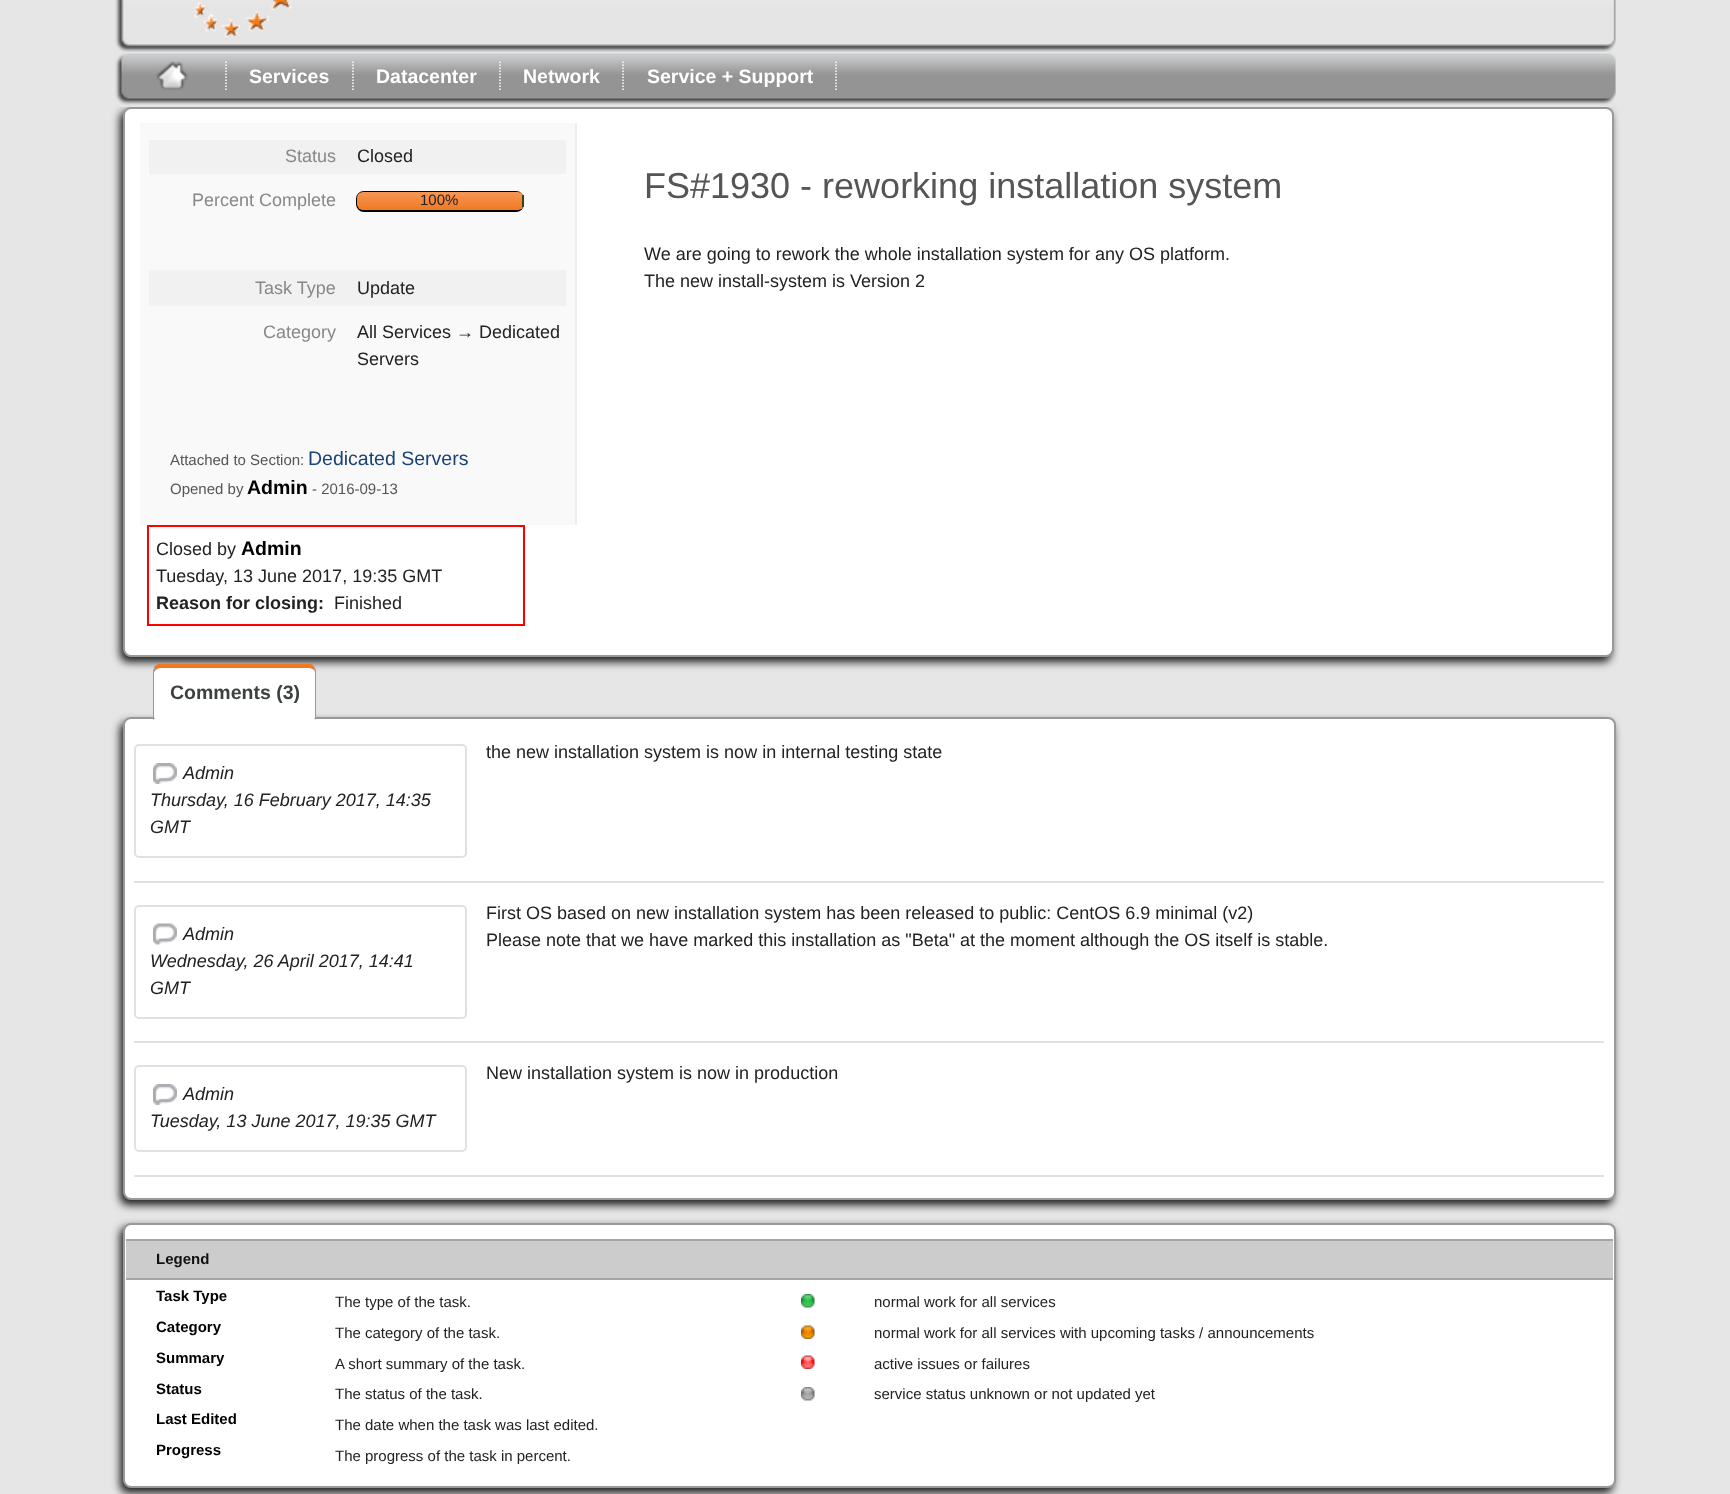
<!DOCTYPE html>
<meta charset="utf-8">
<style>body { margin: 0 } canvas { display: block }</style>
<canvas id="canvas" width="1730" height="1494"></canvas>
<script type="module">
  const canvas = document.getElementById("canvas");
  const g = canvas.getContext("2d");
  g.miterLimit = 4;
  g.fontKerning = "normal";
  function drawText(s, x, y, [font, color]) {
    g.font = font;
    g.fillStyle = color;
    g.fillText(s, x, y);
  }
  function fillBox(x, y, w, h, color) {
    g.fillStyle = color;
    g.fillRect(x, y, w, h);
  }
  async function drawPicture(src, x, y, w, h) {
    const img = new Image();
    img.src = src;
    await img.decode();
    g.drawImage(img, x, y, w, h);
  }
  let gradient;

  const s1 = ["bold 19.5px Liberation Sans", "#FFFFFF"];
  const s2 = ["18px Liberation Sans", "#888888"];
  const s3 = ["18px Liberation Sans", "#222222"];
  const s4 = ["15px Liberation Sans", "#222222"];
  const s5 = ["15px Liberation Sans", "#555555"];
  const s6 = ["19.5px Liberation Sans", "#194174"];
  const s7 = ["bold 19.5px Liberation Sans", "#000000"];
  const s8 = ["36px Liberation Sans", "#555555"];
  const s9 = ["bold 18px Liberation Sans", "#222222"];
  const s10 = ["bold 19.5px Liberation Sans", "#3C4041"];
  const s11 = ["italic 18px Liberation Sans", "#222222"];
  const s12 = ["bold 15px Liberation Sans", "#111111"];
  const s13 = ["bold 15px Liberation Sans", "#000000"];

  fillBox(0, 0, 1730, 1494, "#E6E6E6");
  await drawPicture("pic1.png", 115, 0, 1501, 52);
  await drawPicture("pic2.png", 194, 0, 98, 37);
  g.fillStyle = "#1D1D1D";
  g.filter = "blur(4px)";
  g.beginPath();
  g.roundRect(120, 111, 1491, 551, 8);
  g.fill();
  g.filter = "none";
  fillBox(119, 103, 1493, 4, "#E5E5E5");
  await drawPicture("pic3.png", 115, 53, 1501, 52);
  g.beginPath();
  g.moveTo(226, 61.5);
  g.lineTo(226, 91.5);
  g.strokeStyle = "#FFFFFF";
  g.lineWidth = 1.5;
  g.setLineDash([1.5, 1.5]);
  g.stroke();
  await drawPicture("pic4.png", 156, 61, 32, 29);
  g.beginPath();
  g.moveTo(353, 61.5);
  g.lineTo(353, 91.5);
  g.stroke();
  drawText("Services", 249, 83, s1);
  g.beginPath();
  g.moveTo(500, 61.5);
  g.lineTo(500, 91.5);
  g.stroke();
  drawText("Datacenter", 376, 83, s1);
  g.beginPath();
  g.moveTo(623, 61.5);
  g.lineTo(623, 91.5);
  g.stroke();
  drawText("Network", 523, 83, s1);
  g.beginPath();
  g.moveTo(836, 61.5);
  g.lineTo(836, 91.5);
  g.stroke();
  drawText("Service + Support", 647, 83, s1);
  g.beginPath();
  g.roundRect(124, 108, 1489, 548, 7);
  g.fill();
  g.strokeStyle = "#999999";
  g.lineWidth = 2;
  g.setLineDash([]);
  g.stroke();
  fillBox(140, 123, 435, 402, "#F9F9F9");
  fillBox(575, 123, 2, 402, "#EEEEEE");
  fillBox(149, 140, 417, 34, "#F1F1F1");
  drawText("Status", 285, 162, s2);
  drawText("Closed", 357, 162, s3);
  drawText("Percent Complete", 192, 206, s2);
  g.beginPath();
  g.roundRect(357, 192, 166, 19, 7);
  g.strokeStyle = "#000000";
  g.stroke();
  gradient = g.createLinearGradient(440, 192, 440, 210);
  gradient.addColorStop(0, "#F69754");
  gradient.addColorStop(1, "#F27822");
  g.fillStyle = gradient;
  g.beginPath();
  g.roundRect(357, 192, 167, 18, 6);
  g.fill();
  fillBox(522, 195, 2, 12, "#2D4713");
  drawText("100%", 420, 205, s4);
  fillBox(149, 270, 417, 36, "#F1F1F1");
  drawText("Task Type", 255, 294, s2);
  drawText("Update", 357, 294, s3);
  drawText("Category", 263, 338, s2);
  drawText("All Services → Dedicated", 357, 338, s3);
  drawText("Servers", 357, 365, s3);
  drawText("Attached to Section:", 170, 465, s5);
  drawText("Dedicated Servers", 308, 465, s6);
  drawText("Opened by", 170, 494, s5);
  drawText("Admin", 247, 494, s7);
  drawText("- 2016-09-13", 312, 494, s5);
  drawText("FS#1930 - reworking installation system", 644, 198, s8);
  drawText("We are going to rework the whole installation system for any OS platform.", 644, 260, s3);
  drawText("The new install-system is Version 2", 644, 287, s3);
  g.strokeStyle = "#FF0000";
  g.strokeRect(148, 526, 376, 99);
  drawText("Closed by", 156, 555, s3);
  drawText("Admin", 241, 555, s7);
  drawText("Tuesday, 13 June 2017, 19:35 GMT", 156, 582, s3);
  drawText("Reason for closing:", 156, 609, s9);
  drawText("Finished", 334, 609, s3);
  g.fillStyle = "#1D1D1D";
  g.filter = "blur(4px)";
  g.beginPath();
  g.roundRect(120, 722, 1493, 483, 8);
  g.fill();
  g.filter = "none";
  g.fillStyle = "#FFFFFF";
  g.beginPath();
  g.roundRect(124, 718, 1491, 481, 7);
  g.fill();
  g.strokeStyle = "#999999";
  g.stroke();
  g.beginPath();
  g.moveTo(160, 668);
  g.lineTo(309, 668);
  g.bezierCurveTo(312, 668, 315, 670, 315, 672);
  g.lineTo(315, 718);
  g.lineTo(154, 718);
  g.lineTo(154, 672);
  g.bezierCurveTo(154, 670, 157, 668, 160, 668);
  g.closePath();
  g.fill();
  g.fillStyle = "#F27822";
  g.beginPath();
  g.moveTo(160, 668);
  g.bezierCurveTo(158, 668, 157, 669, 156, 670);
  g.lineTo(154, 667);
  g.lineTo(158, 664);
  g.lineTo(311, 664);
  g.bezierCurveTo(313, 665, 314, 667, 315, 668);
  g.lineTo(314, 670);
  g.bezierCurveTo(313, 669, 311, 668, 309, 668);
  g.closePath();
  g.fill();
  g.fillStyle = "#999999";
  g.beginPath();
  g.moveTo(315, 668);
  g.bezierCurveTo(316, 669, 316, 671, 316, 672);
  g.lineTo(316, 720);
  g.lineTo(314, 718);
  g.lineTo(315, 718);
  g.lineTo(315, 672);
  g.lineTo(314, 670);
  g.closePath();
  g.fill();
  g.fillStyle = "#FFFFFF";
  g.beginPath();
  g.moveTo(316, 720);
  g.lineTo(314, 718);
  g.lineTo(155, 718);
  g.lineTo(153, 720);
  g.closePath();
  g.fill();
  g.fillStyle = "#999999";
  g.beginPath();
  g.moveTo(153, 720);
  g.lineTo(155, 718);
  g.lineTo(154, 718);
  g.lineTo(154, 672);
  g.lineTo(156, 670);
  g.lineTo(154, 667);
  g.bezierCurveTo(154, 669, 153, 670, 153, 672);
  g.closePath();
  g.fill();
  drawText("Comments (3)", 170, 699, s10);
  fillBox(134, 881, 1470, 2, "#E1E1E1");
  drawText("the new installation system is now in internal testing state", 486, 758, s3);
  g.beginPath();
  g.roundRect(135, 745, 331, 112, 4);
  g.strokeStyle = "#E1E1E1";
  g.stroke();
  await drawPicture("pic5.png", 153, 763, 24, 21);
  drawText("Admin", 183, 779, s11);
  drawText("Thursday, 16 February 2017, 14:35", 150, 806, s11);
  drawText("GMT", 150, 833, s11);
  fillBox(134, 1041, 1470, 2, "#E1E1E1");
  g.beginPath();
  g.roundRect(135, 906, 331, 112, 4);
  g.stroke();
  await drawPicture("pic6.png", 153, 923, 24, 22);
  drawText("Admin", 183, 940, s11);
  drawText("Wednesday, 26 April 2017, 14:41", 150, 967, s11);
  drawText("GMT", 150, 994, s11);
  drawText("First OS based on new installation system has been released to public: CentOS 6.9 minimal (v2)", 486, 919, s3);
  drawText("Please note that we have marked this installation as \"Beta\" at the moment although the OS itself is stable.", 486, 946, s3);
  fillBox(134, 1175, 1470, 2, "#E1E1E1");
  drawText("New installation system is now in production", 486, 1079, s3);
  g.beginPath();
  g.roundRect(135, 1066, 331, 85, 4);
  g.stroke();
  await drawPicture("pic5.png", 153, 1084, 24, 21);
  drawText("Admin", 183, 1100, s11);
  drawText("Tuesday, 13 June 2017, 19:35 GMT", 150, 1127, s11);
  g.fillStyle = "#1D1D1D";
  g.filter = "blur(4px)";
  g.beginPath();
  g.roundRect(120, 1227, 1493, 266, 8);
  g.fill();
  g.filter = "none";
  g.fillStyle = "#FFFFFF";
  g.beginPath();
  g.roundRect(124, 1224, 1491, 263, 7);
  g.fill();
  g.strokeStyle = "#999999";
  g.stroke();
  fillBox(126, 1241, 1487, 37, "#CCCCCC");
  fillBox(126, 1239, 1487, 2, "#A1A6A8");
  fillBox(126, 1278, 1487, 2, "#A1A6A8");
  drawText("Legend", 156, 1264, s12);
  drawText("Task Type", 156, 1301, s13);
  drawText("The type of the task.", 335, 1307, s4);
  await drawPicture("pic7.png", 801, 1294, 14, 14);
  drawText("normal work for all services", 874, 1307, s4);
  drawText("Category", 156, 1332, s13);
  drawText("The category of the task.", 335, 1338, s4);
  await drawPicture("pic8.png", 801, 1325, 14, 14);
  drawText("normal work for all services with upcoming tasks / announcements", 874, 1338, s4);
  drawText("Summary", 156, 1363, s13);
  drawText("A short summary of the task.", 335, 1369, s4);
  await drawPicture("pic9.png", 801, 1355, 14, 14);
  drawText("active issues or failures", 874, 1369, s4);
  drawText("Status", 156, 1394, s13);
  drawText("The status of the task.", 335, 1399, s4);
  await drawPicture("pic10.png", 801, 1387, 14, 14);
  drawText("service status unknown or not updated yet", 874, 1399, s4);
  drawText("Last Edited", 156, 1424, s13);
  drawText("The date when the task was last edited.", 335, 1430, s4);
  drawText("Progress", 156, 1455, s13);
  drawText("The progress of the task in percent.", 335, 1461, s4);
</script>
